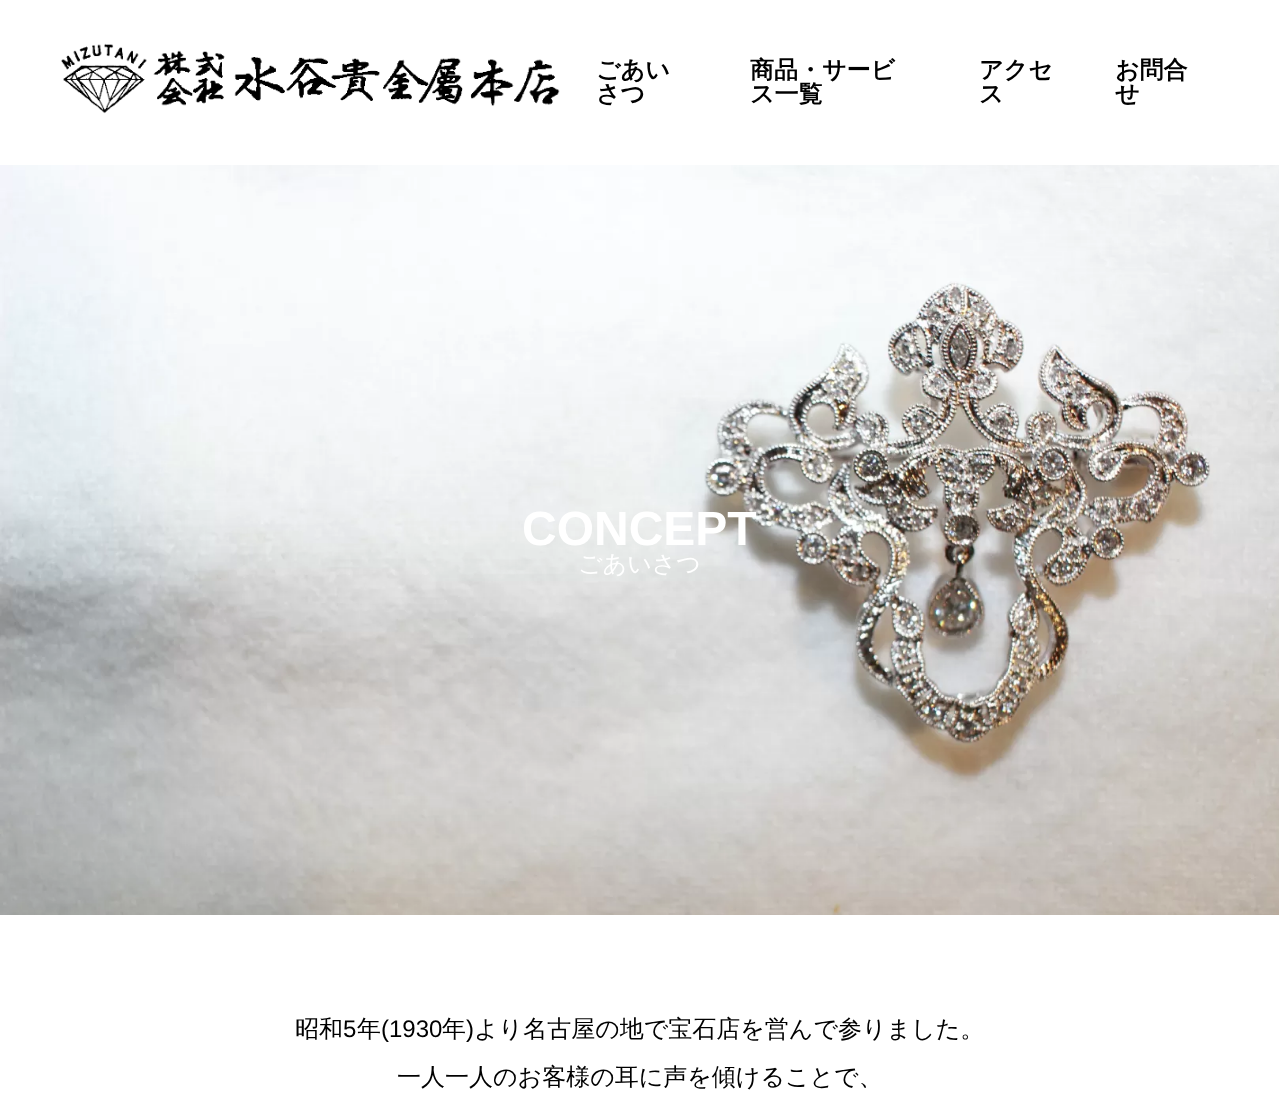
<!DOCTYPE html>
<meta charset="utf-8">
<style>body { margin: 0 } canvas { display: block }</style>
<canvas id="canvas" width="1279" height="1108"></canvas>
<script type="module">
  const canvas = document.getElementById("canvas");
  const g = canvas.getContext("2d");
  g.miterLimit = 4;
  g.fontKerning = "normal";
  function drawText(s, x, y, [font, color]) {
    g.font = font;
    g.fillStyle = color;
    g.fillText(s, x, y);
  }
  function fillBox(x, y, w, h, color) {
    g.fillStyle = color;
    g.fillRect(x, y, w, h);
  }
  async function drawPicture(src, x, y, w, h) {
    const img = new Image();
    img.src = src;
    await img.decode();
    g.drawImage(img, x, y, w, h);
  }

  const s1 = ["bold 24px WenQuanYi Zen Hei", "#000000"];
  const s2 = ["bold 48px Liberation Sans", "#FFFFFF"];
  const s3 = ["500 24px WenQuanYi Zen Hei", "#FFFFFF"];
  const s4 = ["500 24px WenQuanYi Zen Hei", "#000000"];
  const s5 = ["24px Liberation Sans", "#000000"];

  fillBox(0, 0, 1279, 1108, "#FFFFFF");
  await drawPicture("pic1.png", 61, 43, 499, 71);
  drawText("ごあい", 596, 78, s1);
  drawText("さつ", 596, 102, s1);
  drawText("商品・サービ", 750, 78, s1);
  drawText("ス一覧", 750, 102, s1);
  drawText("アクセ", 979, 78, s1);
  drawText("ス", 979, 102, s1);
  drawText("お問合", 1115, 78, s1);
  drawText("せ", 1115, 102, s1);
  await drawPicture("pic2.png", 0, 165, 1279, 750);
  drawText("CONCEPT", 522, 545, s2);
  drawText("ごあいさつ", 578, 572, s3);
  drawText("昭和", 295, 1037, s4);
  drawText("5", 343, 1037, s5);
  drawText("年", 357, 1037, s4);
  drawText("(1930", 381, 1037, s5);
  drawText("年", 442, 1037, s4);
  drawText(")", 466, 1037, s5);
  drawText("より名古屋の地で宝石店を営んで参りました。", 474, 1037, s4);
  drawText("一人一人のお客様の耳に声を傾けることで、", 397, 1085, s4);
</script>
